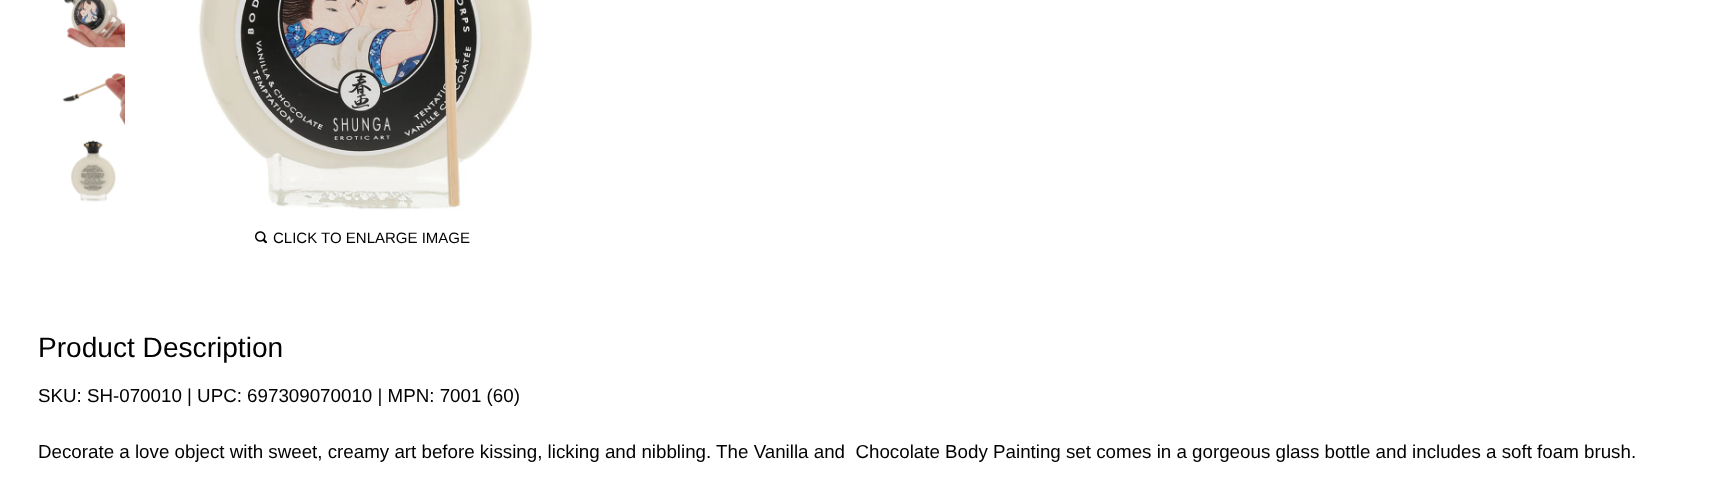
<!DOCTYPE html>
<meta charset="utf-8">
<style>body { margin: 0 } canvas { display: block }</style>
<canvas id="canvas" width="1728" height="497"></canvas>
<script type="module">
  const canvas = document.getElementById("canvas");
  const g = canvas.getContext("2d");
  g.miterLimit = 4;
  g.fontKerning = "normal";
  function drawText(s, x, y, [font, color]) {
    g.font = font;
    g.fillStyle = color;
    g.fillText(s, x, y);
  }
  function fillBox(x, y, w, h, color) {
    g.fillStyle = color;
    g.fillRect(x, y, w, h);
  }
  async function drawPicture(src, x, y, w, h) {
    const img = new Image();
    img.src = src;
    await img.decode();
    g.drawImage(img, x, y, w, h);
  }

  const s1 = ["15px Liberation Sans", "#000000"];
  const s2 = ["28.1px Liberation Sans", "#000000"];
  const s3 = ["18.75px Liberation Sans", "#000000"];

  fillBox(0, 0, 1728, 497, "#FFFFFF");
  await drawPicture("pic1.png", 63, 0, 62, 48);
  await drawPicture("pic2.png", 62, 73, 63, 52);
  await drawPicture("pic3.png", 71, 140, 45, 62);
  await drawPicture("pic4.png", 198, 0, 335, 210);
  await drawPicture("pic5.png", 255, 231, 12, 13);
  drawText("CLICK TO ENLARGE IMAGE", 273, 243, s1);
  drawText("Product Description", 38, 357, s2);
  drawText("SKU: SH-070010 | UPC: 697309070010 | MPN: 7001 (60)", 38, 402, s3);
  drawText("Decorate a love object with sweet, creamy art before kissing, licking and nibbling. The Vanilla and  Chocolate Body Painting set comes in a gorgeous glass bottle and includes a soft foam brush.", 38, 458, s3);
</script>
